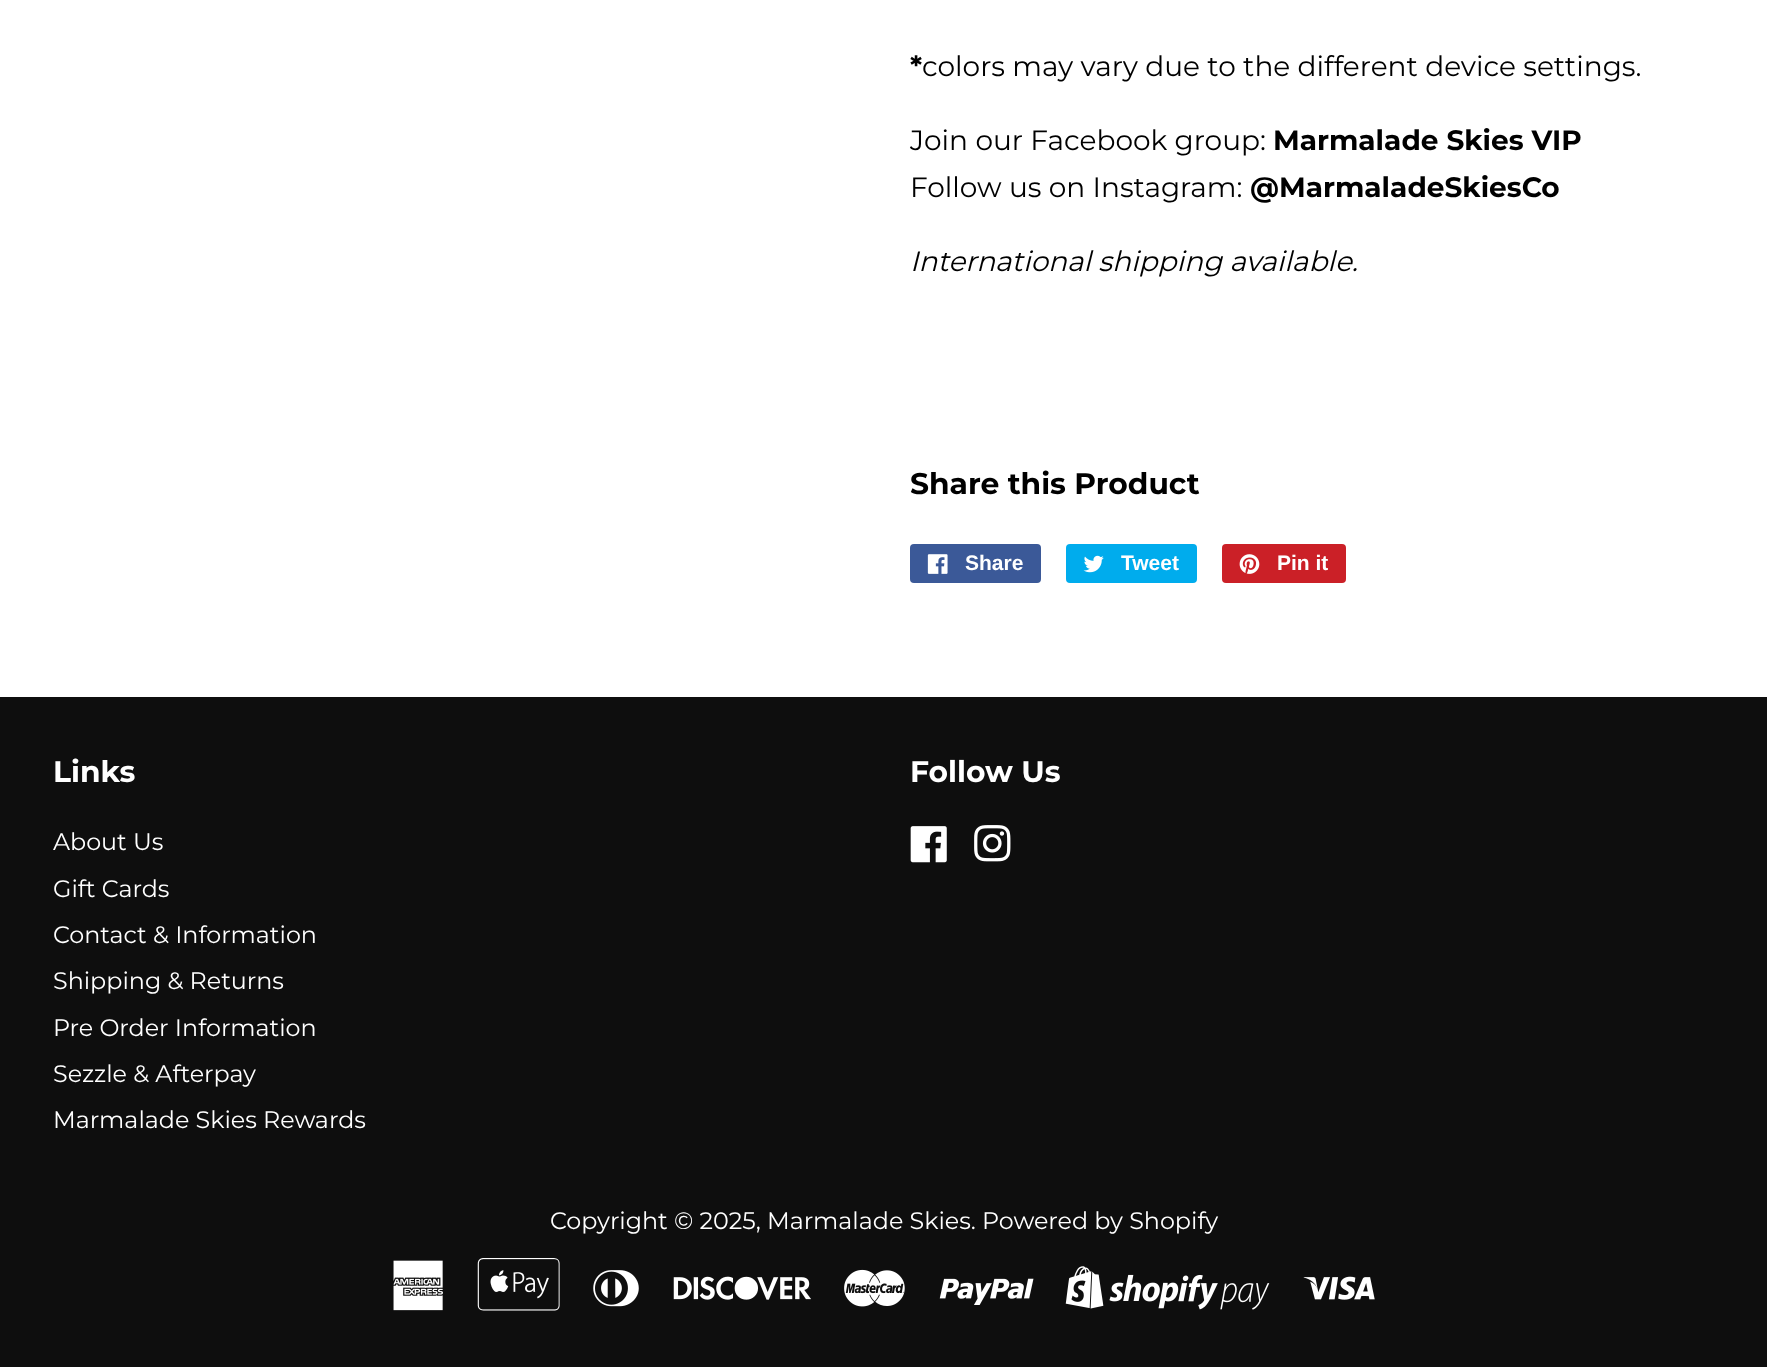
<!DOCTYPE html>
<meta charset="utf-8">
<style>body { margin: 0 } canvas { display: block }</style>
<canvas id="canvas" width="1767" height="1367"></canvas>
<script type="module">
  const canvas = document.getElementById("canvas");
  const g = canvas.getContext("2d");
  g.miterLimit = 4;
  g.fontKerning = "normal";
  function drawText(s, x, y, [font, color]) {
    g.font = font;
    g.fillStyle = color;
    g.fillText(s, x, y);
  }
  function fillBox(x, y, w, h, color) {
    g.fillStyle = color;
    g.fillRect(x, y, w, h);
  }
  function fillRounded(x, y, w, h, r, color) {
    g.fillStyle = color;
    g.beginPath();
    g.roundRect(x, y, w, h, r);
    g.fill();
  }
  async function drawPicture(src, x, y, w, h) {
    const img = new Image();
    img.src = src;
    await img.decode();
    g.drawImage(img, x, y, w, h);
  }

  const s1 = ["bold 28px Montserrat", "#000000"];
  const s2 = ["28px Montserrat", "#000000"];
  const s3 = ["italic 28px Montserrat", "#000000"];
  const s4 = ["bold 29.75px Montserrat", "#000000"];
  const s5 = ["bold 21px Liberation Sans", "#FFFFFF"];
  const s6 = ["bold 29.75px Montserrat", "#FFFFFF"];
  const s7 = ["23.8px Montserrat", "#FFFFFF"];

  fillBox(0, 0, 1767, 1367, "#FFFFFF");
  drawText("*", 910, 76, s1);
  drawText("colors may vary due to the different device settings.", 922, 76, s2);
  drawText("Join our Facebook group:", 910, 150, s2);
  drawText("Marmalade Skies VIP", 1273, 150, s1);
  drawText("Follow us on Instagram:", 910, 197, s2);
  drawText("@MarmaladeSkiesCo", 1250, 197, s1);
  drawText("International shipping available.", 910, 271, s3);
  drawText("Share this Product", 910, 494, s4);
  fillRounded(910, 544, 131, 39, 4, "#3B5998");
  await drawPicture("pic1.png", 927, 554, 21, 20);
  drawText("Share", 965, 570, s5);
  fillRounded(1066, 544, 131, 39, 4, "#00ACED");
  await drawPicture("pic2.png", 1083, 555, 21, 18);
  drawText("Tweet", 1121, 570, s5);
  fillRounded(1222, 544, 124, 39, 4, "#CB2027");
  await drawPicture("pic3.png", 1239, 554, 21, 20);
  drawText("Pin it", 1277, 570, s5);
  fillBox(0, 697, 1767, 670, "#0E0E0E");
  drawText("Links", 53, 782, s6);
  drawText("About Us", 53, 850, s7);
  drawText("Gift Cards", 53, 897, s7);
  drawText("Contact & Information", 53, 943, s7);
  drawText("Shipping & Returns", 53, 989, s7);
  drawText("Pre Order Information", 53, 1036, s7);
  drawText("Sezzle & Afterpay", 53, 1082, s7);
  drawText("Marmalade Skies Rewards", 53, 1128, s7);
  drawText("Follow Us", 910, 782, s6);
  await drawPicture("pic4.png", 910, 826, 37, 37);
  await drawPicture("pic5.png", 974, 825, 37, 37);
  drawText("Copyright © 2025, Marmalade Skies. Powered by Shopify", 550, 1229, s7);
  await drawPicture("pic6.png", 393, 1260, 50, 51);
  await drawPicture("pic7.png", 477, 1258, 83, 53);
  await drawPicture("pic8.png", 593, 1270, 46, 37);
  await drawPicture("pic9.png", 673, 1276, 138, 24);
  await drawPicture("pic10.png", 844, 1269, 61, 38);
  await drawPicture("pic11.png", 939, 1278, 95, 27);
  await drawPicture("pic12.png", 1065, 1266, 205, 44);
  await drawPicture("pic13.png", 1303, 1276, 72, 24);
</script>
